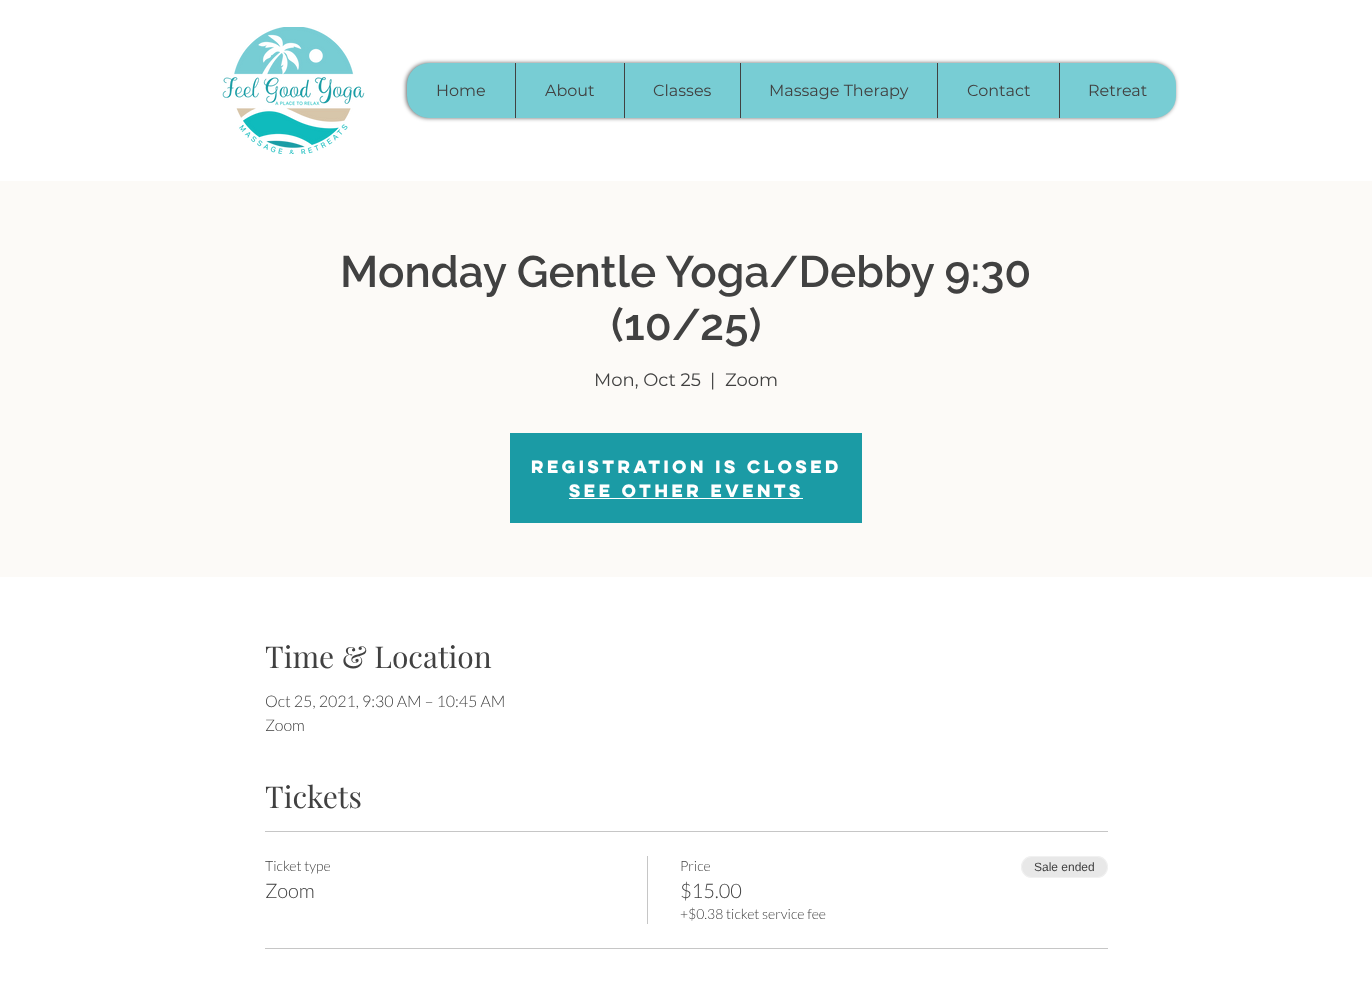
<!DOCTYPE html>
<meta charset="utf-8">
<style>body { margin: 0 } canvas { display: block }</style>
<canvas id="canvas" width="1372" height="1004"></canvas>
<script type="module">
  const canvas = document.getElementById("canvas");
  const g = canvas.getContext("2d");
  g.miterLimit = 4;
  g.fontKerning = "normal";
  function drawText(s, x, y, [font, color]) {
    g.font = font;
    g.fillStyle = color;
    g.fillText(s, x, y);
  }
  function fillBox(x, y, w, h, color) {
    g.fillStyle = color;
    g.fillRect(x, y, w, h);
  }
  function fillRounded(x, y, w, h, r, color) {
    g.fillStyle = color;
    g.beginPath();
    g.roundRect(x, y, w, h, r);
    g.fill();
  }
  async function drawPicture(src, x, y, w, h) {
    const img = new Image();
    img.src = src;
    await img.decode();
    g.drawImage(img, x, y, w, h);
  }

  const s1 = ["16px Montserrat", "#414141"];
  const s2 = ["600 44px Raleway", "#414141"];
  const s3 = ["18px Montserrat", "#414141"];
  const s4 = ["bold 16px 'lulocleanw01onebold'", "#FFFFFF"];
  const s5 = ["30px Playfair Display", "#414141"];
  const s6 = ["300 16px Lato", "#414141"];
  const s7 = ["300 14px Lato", "#414141"];
  const s8 = ["300 20px Lato", "#414141"];
  const s9 = ["12px Liberation Sans", "#414141"];

  fillBox(0, 0, 1372, 1004, "#FFFFFF");
  await drawPicture("pic1.png", 222, 27, 143, 127);
  g.fillStyle = "rgba(0, 0, 0, 0.6)";
  g.filter = "blur(2px)";
  g.beginPath();
  g.roundRect(406, 63, 769, 55, 22);
  g.fill();
  g.filter = "none";
  fillRounded(407, 63, 769, 55, 22, "#78CDD4");
  drawText("Home", 436, 96, s1);
  fillBox(515, 63, 1, 55, "#414141");
  drawText("About", 545, 96, s1);
  fillBox(624, 63, 1, 55, "#414141");
  drawText("Classes", 653, 96, s1);
  fillBox(740, 63, 1, 55, "#414141");
  drawText("Massage Therapy", 769, 96, s1);
  fillBox(937, 63, 1, 55, "#414141");
  drawText("Contact", 967, 96, s1);
  fillBox(1059, 63, 1, 55, "#414141");
  drawText("Retreat", 1088, 96, s1);
  fillBox(0, 181, 1372, 396, "#FCFAF7");
  drawText("Monday Gentle Yoga/Debby 9:30", 340, 287, s2);
  drawText("(10/25)", 611, 340, s2);
  drawText("Mon, Oct 25", 594, 386, s3);
  drawText("|", 710, 386, s3);
  drawText("Zoom", 725, 386, s3);
  fillBox(510, 433, 352, 90, "#1B9BA5");
  drawText("Registration is Closed", 531, 473, s4);
  drawText("See other events", 569, 497, s4);
  fillBox(569, 498, 234, 1, "#FFFFFF");
  drawText("Time & Location", 265, 668, s5);
  drawText("Oct 25, 2021, 9:30 AM – 10:45 AM", 265, 707, s6);
  drawText("Zoom", 265, 731, s6);
  drawText("Tickets", 265, 808, s5);
  fillBox(265, 831, 843, 1, "#C6C6C6");
  fillBox(265, 948, 843, 1, "#C6C6C6");
  drawText("Ticket type", 265, 871, s7);
  drawText("Zoom", 265, 898, s8);
  fillBox(647, 856, 1, 68, "#C6C6C6");
  drawText("Price", 680, 871, s7);
  drawText("$15.00", 680, 898, s8);
  drawText("+$0.38 ticket service fee", 680, 919, s7);
  fillRounded(1021, 856, 87, 22, 11, "#E8E8E8");
  g.beginPath();
  g.roundRect(1021.5, 856.5, 86, 21, 10.5);
  g.strokeStyle = "rgba(255, 255, 255, 0.4)";
  g.stroke();
  drawText("Sale ended", 1034, 871, s9);
</script>
